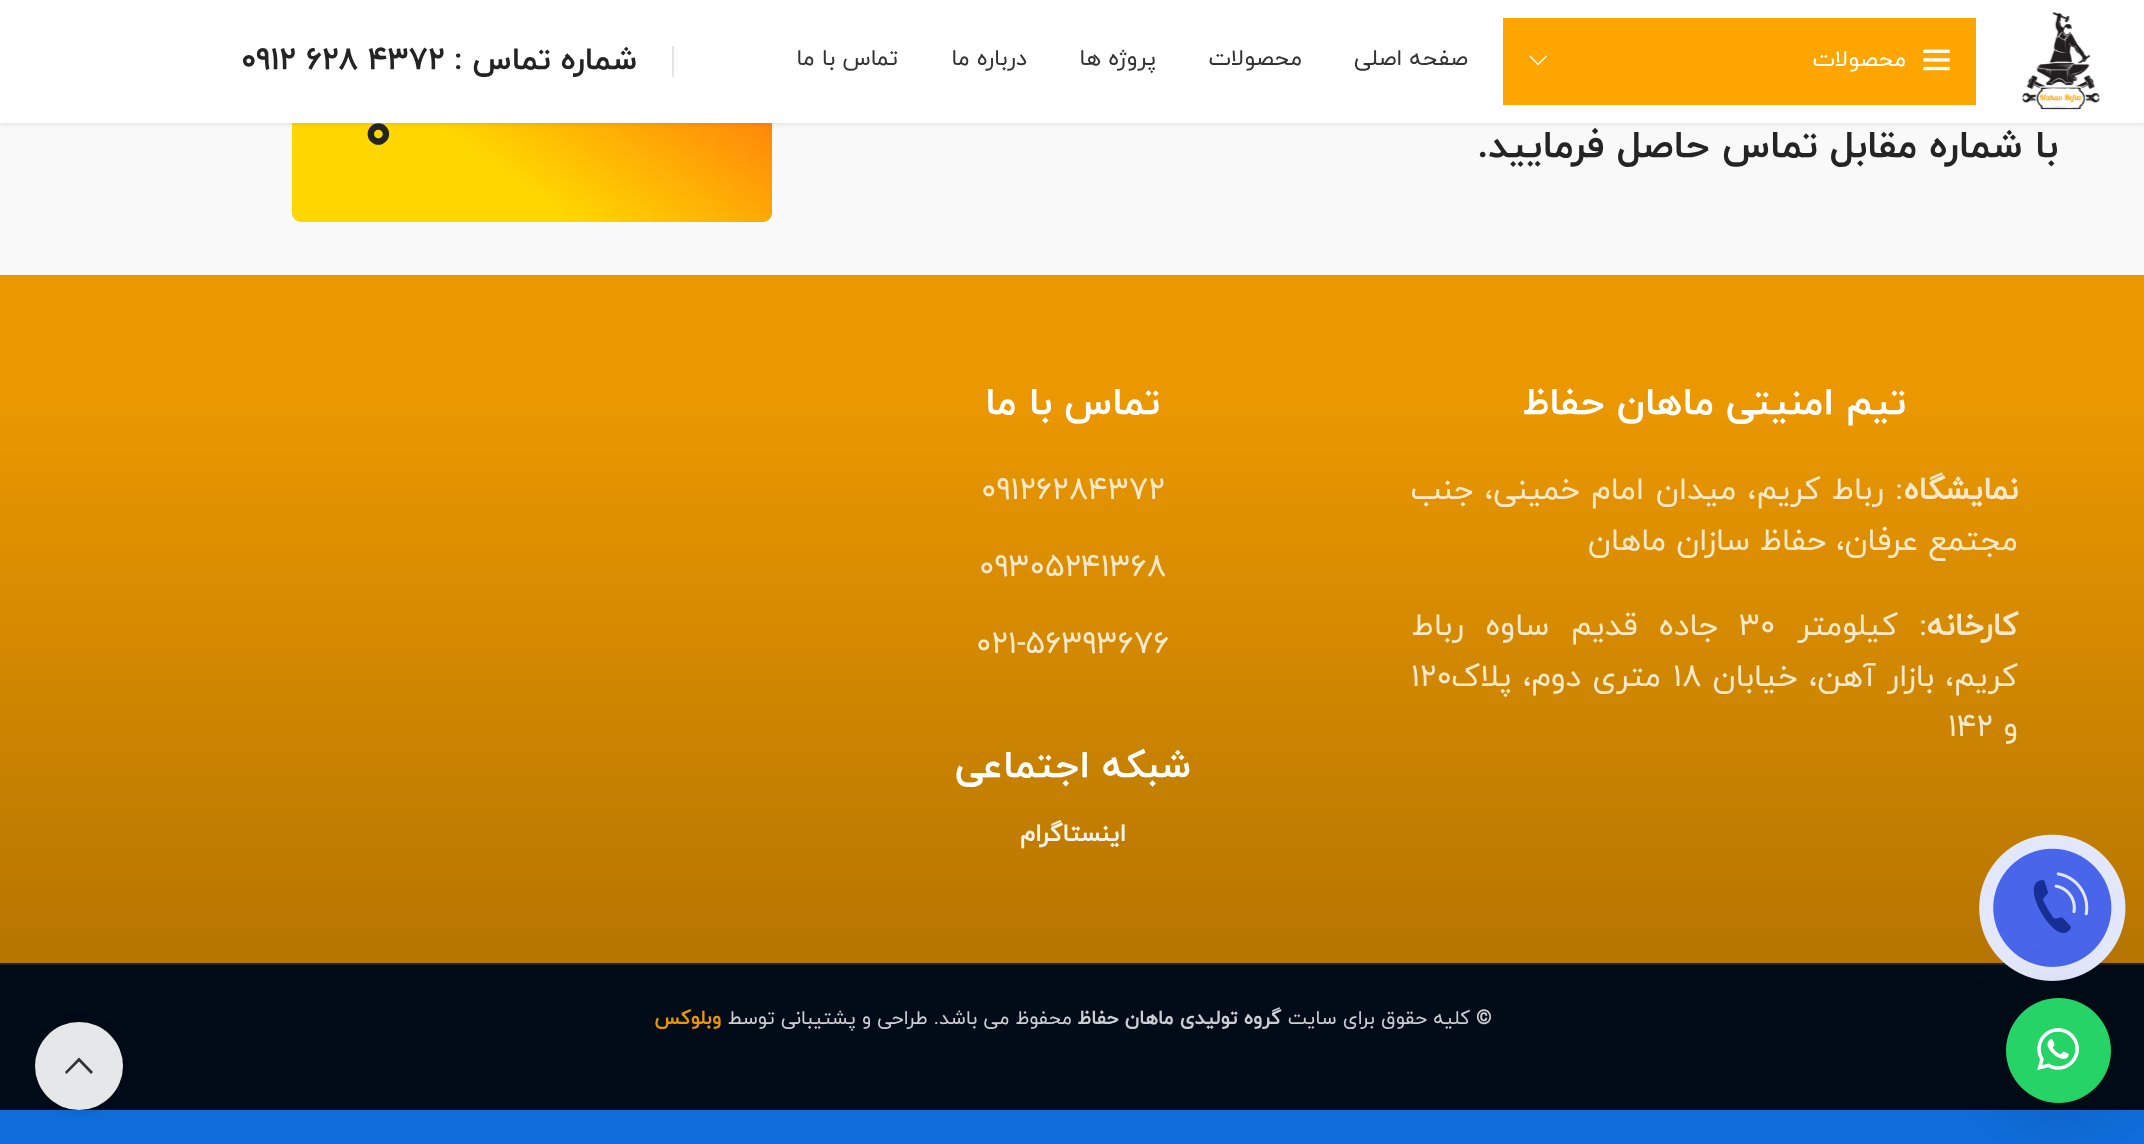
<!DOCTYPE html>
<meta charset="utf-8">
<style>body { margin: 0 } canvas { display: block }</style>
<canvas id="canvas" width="2144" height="1144"></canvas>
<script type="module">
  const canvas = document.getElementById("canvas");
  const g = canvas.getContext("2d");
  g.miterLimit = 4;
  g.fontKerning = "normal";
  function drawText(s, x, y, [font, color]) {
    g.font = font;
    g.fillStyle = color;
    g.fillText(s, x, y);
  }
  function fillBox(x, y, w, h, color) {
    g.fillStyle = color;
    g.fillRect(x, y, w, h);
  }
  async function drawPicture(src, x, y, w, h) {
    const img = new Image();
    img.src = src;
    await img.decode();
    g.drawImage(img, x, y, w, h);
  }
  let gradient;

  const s1 = ["22.75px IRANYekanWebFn", "#FFFFFF"];
  const s2 = ["22.75px IRANYekanWebFn", "#333333"];
  const s3 = ["bold 31.5px IRANYekanWebFn", "#242424"];
  const s4 = ["bold 38.5px IRANYekanWebFn", "#242424"];
  const s5 = ["bold 58px IRANYekanWebFn", "#242424"];
  const s6 = ["bold 38.5px IRANYekanWebFn", "#FFFFFF"];
  const s7 = ["bold 31.5px 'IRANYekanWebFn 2'", "#F9E9CC"];
  const s8 = ["31.5px IRANYekanWebFn", "#F9E9CC"];
  const s9 = ["bold 24.5px 'IRANYekanWebFn 2'", "#F9F2E6"];
  const s10 = ["bold 19.6px 'IRANYekanWebFn 2'", "#CCCED1"];
  const s11 = ["19.6px IRANYekanWebFn", "#CCCED1"];
  const s12 = ["bold 19.6px 'IRANYekanWebFn 2'", "#EB9800"];

  fillBox(0, 0, 2144, 1144, "#106CD8");
  fillBox(0, 123, 2144, 152, "#F9F9F9");
  gradient = g.createLinearGradient(660, -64, 404, 301);
  gradient.addColorStop(0, "#FF640E");
  gradient.addColorStop(0.64, "#FFD700");
  g.fillStyle = gradient;
  g.beginPath();
  g.roundRect(292, 14, 480, 208, 9);
  g.fill();
  g.fillStyle = "rgba(0, 0, 0, 0.1)";
  g.filter = "blur(2.5px)";
  g.beginPath();
  g.rect(0, 2, 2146, 122);
  g.fill();
  g.filter = "none";
  fillBox(0, 0, 2144, 123, "#FFFFFF");
  await drawPicture("pic1.png", 2021, 12, 79, 98);
  fillBox(1503, 18, 473, 87, "#FFA500");
  await drawPicture("pic2.png", 1923, 49, 27, 22);
  g.direction = "rtl";
  drawText("محصولات", 1906, 66, s1);
  g.beginPath();
  g.moveTo(1546, 55.5);
  g.lineTo(1547, 56.5);
  g.lineTo(1538, 65.5);
  g.lineTo(1529.5, 56.5);
  g.lineTo(1530.5, 55.5);
  g.lineTo(1538, 63.5);
  g.closePath();
  g.fill();
  drawText("صفحه اصلی", 1468, 65, s2);
  drawText("محصولات", 1302, 65, s2);
  drawText("پروژه ها", 1156, 65, s2);
  drawText("درباره ما", 1027, 65, s2);
  drawText("تماس با ما", 898, 65, s2);
  fillBox(672, 46, 2, 31, "#E4E4E4");
  drawText("شماره تماس :", 637, 69, s3);
  g.direction = "ltr";
  drawText("0912 628 4372", 241, 69, s3);
  g.direction = "rtl";
  drawText("با شماره مقابل تماس حاصل فرمایید.", 2058, 157, s4);
  g.direction = "ltr";
  drawText("0", 364, 149, s5);
  gradient = g.createLinearGradient(1073, 275, 1073, 963);
  gradient.addColorStop(0.18, "#EB9800");
  gradient.addColorStop(1, "#B57500");
  g.fillStyle = gradient;
  g.fillRect(0, 275, 2144, 688);
  g.direction = "rtl";
  drawText("تیم امنیتی ماهان حفاظ", 1906, 414, s6);
  drawText("نمایشگاه", 2018, 499, s7);
  g.wordSpacing = "1.5px";
  drawText(": رباط کریم، میدان امام خمینی، جنب", 1903, 499, s8);
  g.wordSpacing = "0px";
  drawText("مجتمع عرفان، حفاظ سازان ماهان", 2018, 550, s8);
  drawText("کارخانه", 2018, 635, s7);
  g.wordSpacing = "11.5px";
  drawText(": کیلومتر", 1927, 635, s8);
  g.wordSpacing = "0px";
  g.direction = "ltr";
  drawText("۳۰", 1739, 635, s8);
  g.wordSpacing = "11.5px";
  g.direction = "rtl";
  drawText("جاده قدیم ساوه رباط", 1718, 635, s8);
  g.wordSpacing = "1.5px";
  drawText("کریم، بازار آهن، خیابان", 2018, 686, s8);
  g.wordSpacing = "0px";
  g.direction = "ltr";
  drawText("۱۸", 1673, 686, s8);
  g.wordSpacing = "1.5px";
  g.direction = "rtl";
  drawText("متری دوم، پلاک", 1661, 686, s8);
  g.wordSpacing = "0px";
  g.direction = "ltr";
  drawText("۱۲۰", 1411, 686, s8);
  g.direction = "rtl";
  drawText("و", 2018, 736, s8);
  g.direction = "ltr";
  drawText("142", 1948, 736, s8);
  g.direction = "rtl";
  drawText("تماس با ما", 1160, 414, s6);
  g.direction = "ltr";
  drawText("09126284372", 981, 499, s8);
  drawText("09305241368", 979, 576, s8);
  drawText("021-56393676", 976, 653, s8);
  g.direction = "rtl";
  drawText("شبکه اجتماعی", 1191, 777, s6);
  drawText("اینستاگرام", 1126, 841, s9);
  fillBox(0, 965, 2144, 145, "#020C18");
  fillBox(0, 963, 2144, 2, "#1B242F");
  await drawPicture("pic3.png", 1979, 834, 147, 147);
  g.direction = "ltr";
  drawText("©", 1476, 1024, s10);
  g.direction = "rtl";
  drawText("کلیه حقوق برای سایت", 1470, 1024, s11);
  drawText("گروه تولیدی ماهان حفاظ", 1281, 1024, s10);
  drawText("محفوظ می باشد. طراحی و پشتیبانی توسط", 1072, 1024, s11);
  drawText("وبلوکس", 721, 1024, s12);
  g.fillStyle = "rgba(0, 0, 0, 0.16)";
  g.filter = "blur(28px)";
  g.beginPath();
  g.roundRect(2006, 1001, 105, 105, 52.5);
  g.fill();
  g.filter = "none";
  g.fillStyle = "#25D366";
  g.beginPath();
  g.arc(2058.5, 1050.5, 52.5, 0, Math.PI * 2);
  g.fill();
  await drawPicture("pic4.png", 2037, 1028, 42, 43);
  g.fillStyle = "rgba(0, 0, 0, 0.17)";
  g.filter = "blur(4.5px)";
  g.beginPath();
  g.roundRect(35, 1022, 88, 88, 44);
  g.fill();
  g.filter = "none";
  g.fillStyle = "#E6E7E8";
  g.beginPath();
  g.arc(79, 1066, 44, 0, Math.PI * 2);
  g.fill();
  g.fillStyle = "#333333";
  g.beginPath();
  g.moveTo(79, 1057.5);
  g.lineTo(93, 1072);
  g.lineTo(91, 1074);
  g.lineTo(79, 1061.5);
  g.lineTo(66.5, 1074);
  g.lineTo(65, 1072);
  g.closePath();
  g.fill();
</script>
